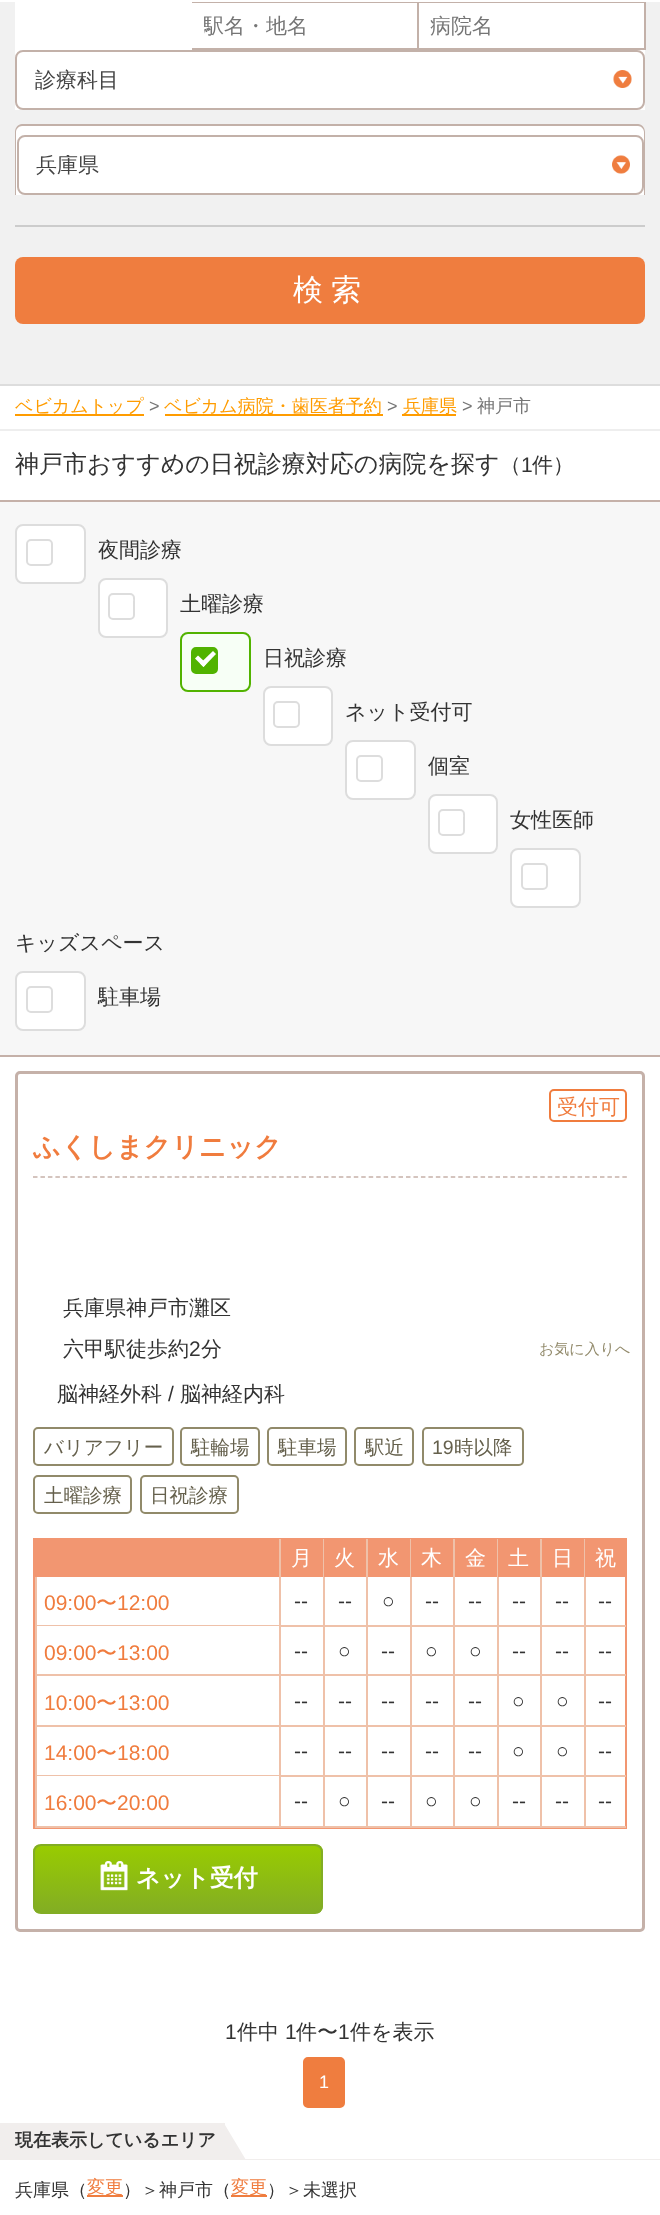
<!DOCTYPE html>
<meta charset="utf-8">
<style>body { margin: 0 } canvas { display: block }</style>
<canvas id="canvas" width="660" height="2215"></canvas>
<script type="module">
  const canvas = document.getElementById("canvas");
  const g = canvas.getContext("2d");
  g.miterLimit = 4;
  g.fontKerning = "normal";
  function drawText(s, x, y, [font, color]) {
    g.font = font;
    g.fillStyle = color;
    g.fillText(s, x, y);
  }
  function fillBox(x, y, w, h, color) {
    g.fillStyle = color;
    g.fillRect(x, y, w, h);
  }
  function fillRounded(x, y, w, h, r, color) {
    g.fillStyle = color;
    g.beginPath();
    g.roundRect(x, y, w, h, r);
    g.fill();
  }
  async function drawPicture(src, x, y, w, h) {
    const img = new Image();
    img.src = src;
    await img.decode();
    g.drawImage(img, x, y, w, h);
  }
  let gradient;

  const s1 = ["500 21px WenQuanYi Zen Hei", "#757575"];
  const s2 = ["500 21px WenQuanYi Zen Hei", "#444444"];
  const s3 = ["500 30px WenQuanYi Zen Hei", "#FFFFFF"];
  const s4 = ["500 18px WenQuanYi Zen Hei", "#FF9C00"];
  const s5 = ["18px Liberation Sans", "#757575"];
  const s6 = ["500 18px WenQuanYi Zen Hei", "#757575"];
  const s7 = ["500 24px WenQuanYi Zen Hei", "#333333"];
  const s8 = ["500 21px WenQuanYi Zen Hei", "#333333"];
  const s9 = ["21px Liberation Sans", "#333333"];
  const s10 = ["bold 18px WenQuanYi Zen Hei", "#333333"];
  const s11 = ["500 18px WenQuanYi Zen Hei", "#333333"];
  const s12 = ["500 18px WenQuanYi Zen Hei", "#F07C3E"];
  const s13 = ["500 21px WenQuanYi Zen Hei", "#F07C3E"];
  const s14 = ["bold 27px WenQuanYi Zen Hei", "#F07C3E"];
  const s15 = ["500 15px WenQuanYi Zen Hei", "#928A6B"];
  const s16 = ["500 19.5px WenQuanYi Zen Hei", "#65604C"];
  const s17 = ["19.5px Liberation Sans", "#65604C"];
  const s18 = ["500 21px WenQuanYi Zen Hei", "#FFFFFF"];
  const s19 = ["21px Liberation Sans", "#F07C3E"];
  const s20 = ["bold 24px WenQuanYi Zen Hei", "#FFFFFF"];
  const s21 = ["18px Liberation Sans", "#FFFFFF"];

  fillBox(0, 0, 660, 2215, "#FFFFFF");
  fillBox(0, 384, 660, 2, "#DDDDDD");
  fillBox(0, 2, 660, 382, "#F1F1F1");
  fillBox(15, 2, 630, 108, "#FFFFFF");
  fillBox(192, 2, 453, 1, "#C3B1A9");
  fillBox(417, 2, 2, 48, "#C3B1A9");
  fillBox(192, 48, 227, 2, "#C3B1A9");
  g.save();
  g.beginPath();
  g.rect(204, 14, 201, 27);
  g.clip();
  drawText("駅名・地名", 203, 33, s1);
  g.restore();
  fillBox(644, 2, 2, 48, "#C3B1A9");
  fillBox(419, 48, 226, 2, "#C3B1A9");
  drawText("病院名", 430, 33, s1);
  await drawPicture("pic1.png", 613, 70, 19, 18);
  g.beginPath();
  g.roundRect(16, 51, 628, 58, 7);
  g.strokeStyle = "#C3B1A9";
  g.lineWidth = 2;
  g.stroke();
  drawText("診療科目", 35, 87, s2);
  g.fillStyle = "#FFFFFF";
  g.beginPath();
  g.roundRect(15, 125, 630, 70, [8, 8, 0, 0]);
  g.fill();
  g.fillStyle = "#C3B1A9";
  g.beginPath();
  g.moveTo(22, 124);
  g.lineTo(638, 124);
  g.bezierCurveTo(642, 124, 645, 128, 645, 132);
  g.lineTo(645, 195);
  g.lineTo(15, 195);
  g.lineTo(15, 132);
  g.bezierCurveTo(15, 128, 18, 124, 22, 124);
  g.closePath();
  g.moveTo(22, 126);
  g.lineTo(638, 126);
  g.bezierCurveTo(641, 126, 644, 129, 644, 132);
  g.lineTo(644, 195);
  g.lineTo(16, 195);
  g.lineTo(16, 132);
  g.bezierCurveTo(16, 129, 19, 126, 22, 126);
  g.closePath();
  g.fill("evenodd");
  await drawPicture("pic2.png", 612, 155, 18, 19);
  g.beginPath();
  g.roundRect(18, 136, 625, 58, 7);
  g.stroke();
  g.save();
  g.beginPath();
  g.rect(36, 155, 588, 21);
  g.clip();
  drawText("兵庫県", 36, 172, s2);
  g.restore();
  fillBox(15, 225, 630, 2, "#CCCCCC");
  fillRounded(15, 257, 630, 67, 8, "#EF7D3F");
  g.letterSpacing = "8px";
  drawText("検索", 293, 300, s3);
  fillBox(0, 429, 660, 2, "#EEEEEE");
  fillBox(15, 414, 129, 2, "#FF9C00");
  g.letterSpacing = "0px";
  drawText("ベビカムトップ", 15, 412, s4);
  drawText(">", 149, 412, s5);
  fillBox(165, 414, 218, 2, "#FF9C00");
  drawText("ベビカム病院・歯医者予約", 164, 412, s4);
  drawText(">", 387, 412, s5);
  fillBox(402, 414, 54, 2, "#FF9C00");
  drawText("兵庫県", 403, 412, s4);
  drawText(">", 462, 412, s5);
  drawText("神戸市", 477, 412, s6);
  drawText("神戸市おすすめの日祝診療対応の病院を探す", 15, 472, s7);
  drawText("（", 500, 472, s8);
  drawText("1", 521, 472, s9);
  drawText("件）", 532, 472, s8);
  fillBox(0, 502, 660, 553, "#F7F7F7");
  fillBox(0, 500, 660, 2, "#C5B1A9");
  fillBox(0, 1055, 660, 2, "#C5B1A9");
  g.fillStyle = "#FFFFFF";
  g.beginPath();
  g.roundRect(16, 525, 69, 58, 7);
  g.fill();
  g.strokeStyle = "#DDDDDD";
  g.stroke();
  g.beginPath();
  g.roundRect(27, 540, 25, 25, 4);
  g.stroke();
  drawText("夜間診療", 98, 557, s8);
  g.fillStyle = "#FFFFFF";
  g.beginPath();
  g.roundRect(99, 579, 68, 58, 7);
  g.fill();
  g.stroke();
  g.beginPath();
  g.roundRect(109, 594, 25, 25, 4);
  g.stroke();
  g.beginPath();
  g.moveTo(130.5, 597);
  g.lineTo(133.5, 600);
  g.lineTo(121, 613);
  g.lineTo(117.5, 609.5);
  g.closePath();
  g.fill();
  drawText("土曜診療", 180, 611, s8);
  g.fillStyle = "#F7FFF6";
  g.beginPath();
  g.roundRect(181, 633, 69, 58, 7);
  g.fill();
  g.strokeStyle = "#52B300";
  g.stroke();
  g.fillStyle = "#51B300";
  g.beginPath();
  g.roundRect(192, 648, 25, 25, 4);
  g.fill();
  g.strokeStyle = "#51B300";
  g.stroke();
  g.fillStyle = "#FFFFFF";
  g.beginPath();
  g.moveTo(213, 651);
  g.lineTo(216, 654);
  g.lineTo(203.5, 667);
  g.lineTo(200, 663.5);
  g.closePath();
  g.fill();
  g.beginPath();
  g.moveTo(198, 655.5);
  g.lineTo(206.5, 663.5);
  g.lineTo(203.5, 667);
  g.lineTo(195, 658.5);
  g.closePath();
  g.fill();
  drawText("日祝診療", 263, 665, s8);
  g.fillStyle = "#FFFFFF";
  g.beginPath();
  g.roundRect(264, 687, 68, 58, 7);
  g.fill();
  g.strokeStyle = "#DDDDDD";
  g.stroke();
  g.beginPath();
  g.roundRect(274, 702, 25, 25, 4);
  g.stroke();
  g.beginPath();
  g.moveTo(295.5, 705);
  g.lineTo(298.5, 708);
  g.lineTo(286, 721);
  g.lineTo(282.5, 717.5);
  g.closePath();
  g.fill();
  drawText("ネット受付可", 345, 719, s8);
  g.fillStyle = "#FFFFFF";
  g.beginPath();
  g.roundRect(346, 741, 69, 58, 7);
  g.fill();
  g.stroke();
  g.beginPath();
  g.roundRect(357, 756, 25, 25, 4);
  g.stroke();
  drawText("個室", 428, 773, s8);
  g.fillStyle = "#FFFFFF";
  g.beginPath();
  g.roundRect(429, 795, 68, 58, 7);
  g.fill();
  g.stroke();
  g.beginPath();
  g.roundRect(439, 810, 25, 25, 4);
  g.stroke();
  g.beginPath();
  g.moveTo(460.5, 813);
  g.lineTo(463.5, 816);
  g.lineTo(451, 829);
  g.lineTo(447.5, 825.5);
  g.closePath();
  g.fill();
  drawText("女性医師", 510, 827, s8);
  g.fillStyle = "#FFFFFF";
  g.beginPath();
  g.roundRect(511, 849, 69, 58, 7);
  g.fill();
  g.stroke();
  g.beginPath();
  g.roundRect(522, 864, 25, 25, 4);
  g.stroke();
  drawText("キッズスペース", 15, 950, s8);
  g.fillStyle = "#FFFFFF";
  g.beginPath();
  g.roundRect(16, 972, 69, 58, 7);
  g.fill();
  g.stroke();
  g.beginPath();
  g.roundRect(27, 987, 25, 25, 4);
  g.stroke();
  drawText("駐車場", 98, 1004, s8);
  fillBox(0, 2123, 225, 37, "#F1EEED");
  drawText("現在表示しているエリア", 15, 2146, s10);
  fillBox(245, 2159, 415, 1, "#F1EEED");
  g.beginPath();
  g.moveTo(223.5, 2160);
  g.lineTo(223.5, 2122.5);
  g.lineTo(246, 2160);
  g.closePath();
  g.fill();
  drawText("兵庫県（", 15, 2196, s11);
  fillBox(87, 2195, 36, 2, "#EF7D3F");
  drawText("変更", 87, 2193, s12);
  drawText("）＞神戸市（", 123, 2196, s11);
  fillBox(231, 2195, 36, 2, "#EF7D3F");
  drawText("変更", 231, 2193, s12);
  drawText("）＞未選択", 267, 2196, s11);
  g.beginPath();
  g.roundRect(16.5, 1072.5, 627, 858, 3.5);
  g.strokeStyle = "#C5B1A9";
  g.lineWidth = 3;
  g.stroke();
  g.beginPath();
  g.roundRect(550, 1090, 76, 31, 4);
  g.strokeStyle = "#F07C3E";
  g.lineWidth = 2;
  g.stroke();
  drawText("受付可", 557, 1114, s13);
  g.beginPath();
  g.moveTo(33, 1177);
  g.lineTo(627, 1177);
  g.strokeStyle = "#C6B1A9";
  g.lineWidth = 1.5;
  g.setLineDash([4.5, 2.96]);
  g.stroke();
  drawText("ふくしまクリニック", 33, 1156, s14);
  drawText("兵庫県神戸市灘区", 63, 1315, s8);
  drawText("六甲駅徒歩約", 63, 1356, s8);
  drawText("2", 189, 1356, s9);
  drawText("分", 201, 1356, s8);
  drawText("お気に入りへ", 539, 1354, s15);
  drawText("脳神経外科", 57, 1401, s8);
  drawText("/", 168, 1401, s9);
  drawText("脳神経内科", 180, 1401, s8);
  g.beginPath();
  g.roundRect(34, 1428, 139, 37, 4);
  g.strokeStyle = "#918A6A";
  g.lineWidth = 2;
  g.setLineDash([]);
  g.stroke();
  drawText("バリアフリー", 44, 1454, s16);
  g.beginPath();
  g.roundRect(181, 1428, 78, 37, 4);
  g.stroke();
  drawText("駐輪場", 191, 1454, s16);
  g.beginPath();
  g.roundRect(268, 1428, 78, 37, 4);
  g.stroke();
  drawText("駐車場", 278, 1454, s16);
  g.beginPath();
  g.roundRect(355, 1428, 58, 37, 4);
  g.stroke();
  drawText("駅近", 365, 1454, s16);
  g.beginPath();
  g.roundRect(423, 1428, 100, 37, 4);
  g.stroke();
  drawText("19", 432, 1454, s17);
  drawText("時以降", 454, 1454, s16);
  g.beginPath();
  g.roundRect(34, 1476, 97, 37, 4);
  g.stroke();
  drawText("土曜診療", 44, 1502, s16);
  g.beginPath();
  g.roundRect(141, 1476, 97, 37, 4);
  g.stroke();
  drawText("日祝診療", 150, 1502, s16);
  g.strokeStyle = "#F29671";
  g.strokeRect(34, 1539, 592, 289);
  fillBox(35, 1540, 244, 37, "#F29671");
  fillBox(279, 1539, 2, 288, "#EFC1A9");
  fillBox(281, 1540, 42, 37, "#F29671");
  fillBox(323, 1539, 1, 38, "#EFC1A9");
  drawText("月", 291, 1565, s18);
  fillBox(324, 1540, 42, 37, "#F29671");
  fillBox(366, 1539, 2, 87, "#EFC1A9");
  drawText("火", 334, 1565, s18);
  fillBox(368, 1540, 42, 37, "#F29671");
  fillBox(410, 1539, 1, 38, "#EFC1A9");
  drawText("水", 378, 1565, s18);
  fillBox(411, 1540, 42, 37, "#F29671");
  fillBox(453, 1539, 2, 87, "#EFC1A9");
  drawText("木", 421, 1565, s18);
  fillBox(455, 1540, 42, 37, "#F29671");
  fillBox(497, 1539, 1, 38, "#EFC1A9");
  drawText("金", 465, 1565, s18);
  fillBox(498, 1540, 42, 37, "#F29671");
  fillBox(540, 1539, 2, 87, "#EFC1A9");
  drawText("土", 508, 1565, s18);
  fillBox(542, 1540, 42, 37, "#F29671");
  fillBox(584, 1539, 1, 38, "#EFC1A9");
  drawText("日", 552, 1565, s18);
  fillBox(585, 1540, 40, 37, "#F29671");
  drawText("祝", 595, 1565, s18);
  fillBox(35, 1625, 246, 1, "#EFC1A9");
  fillBox(35, 1577, 2, 49, "#EFC1A9");
  drawText("09:00", 44, 1610, s19);
  drawText("〜", 96, 1610, s13);
  drawText("12:00", 117, 1610, s19);
  fillBox(323, 1577, 2, 49, "#EFC1A9");
  fillBox(281, 1625, 87, 2, "#EFC1A9");
  drawText("--", 294, 1608, s9);
  drawText("--", 338, 1608, s9);
  fillBox(410, 1577, 2, 49, "#EFC1A9");
  fillBox(368, 1625, 87, 2, "#EFC1A9");
  drawText("○", 382, 1608, s9);
  drawText("--", 425, 1608, s9);
  fillBox(497, 1577, 2, 49, "#EFC1A9");
  fillBox(455, 1625, 87, 2, "#EFC1A9");
  drawText("--", 468, 1608, s9);
  drawText("--", 512, 1608, s9);
  fillBox(584, 1577, 2, 49, "#EFC1A9");
  fillBox(542, 1625, 84, 2, "#EFC1A9");
  drawText("--", 555, 1608, s9);
  drawText("--", 598, 1608, s9);
  fillBox(35, 1674, 246, 2, "#EFC1A9");
  fillBox(35, 1626, 2, 50, "#EFC1A9");
  drawText("09:00", 44, 1660, s19);
  drawText("〜", 96, 1660, s13);
  drawText("13:00", 117, 1660, s19);
  fillBox(323, 1626, 2, 150, "#EFC1A9");
  fillBox(281, 1674, 43, 2, "#EFC1A9");
  drawText("--", 294, 1658, s9);
  fillBox(366, 1626, 2, 150, "#EFC1A9");
  fillBox(324, 1674, 44, 2, "#EFC1A9");
  drawText("○", 338, 1658, s9);
  fillBox(410, 1626, 2, 150, "#EFC1A9");
  fillBox(368, 1674, 43, 2, "#EFC1A9");
  drawText("--", 381, 1658, s9);
  fillBox(453, 1626, 2, 150, "#EFC1A9");
  fillBox(411, 1674, 44, 2, "#EFC1A9");
  drawText("○", 425, 1658, s9);
  fillBox(497, 1626, 2, 150, "#EFC1A9");
  fillBox(455, 1674, 43, 2, "#EFC1A9");
  drawText("○", 469, 1658, s9);
  fillBox(540, 1626, 2, 150, "#EFC1A9");
  fillBox(498, 1674, 44, 2, "#EFC1A9");
  drawText("--", 512, 1658, s9);
  fillBox(584, 1626, 2, 150, "#EFC1A9");
  fillBox(542, 1674, 84, 2, "#EFC1A9");
  drawText("--", 555, 1658, s9);
  drawText("--", 598, 1658, s9);
  fillBox(35, 1725, 591, 2, "#EFC1A9");
  fillBox(35, 1676, 2, 51, "#EFC1A9");
  drawText("10:00", 44, 1710, s19);
  drawText("〜", 96, 1710, s13);
  drawText("13:00", 117, 1710, s19);
  drawText("--", 294, 1708, s9);
  drawText("--", 338, 1708, s9);
  drawText("--", 381, 1708, s9);
  drawText("--", 425, 1708, s9);
  drawText("--", 468, 1708, s9);
  drawText("○", 512, 1708, s9);
  drawText("○", 556, 1708, s9);
  drawText("--", 598, 1708, s9);
  fillBox(35, 1775, 246, 1, "#EFC1A9");
  fillBox(35, 1727, 2, 49, "#EFC1A9");
  drawText("14:00", 44, 1760, s19);
  drawText("〜", 96, 1760, s13);
  drawText("18:00", 117, 1760, s19);
  fillBox(281, 1775, 345, 2, "#EFC1A9");
  drawText("--", 294, 1758, s9);
  drawText("--", 338, 1758, s9);
  drawText("--", 381, 1758, s9);
  drawText("--", 425, 1758, s9);
  drawText("--", 468, 1758, s9);
  drawText("○", 512, 1758, s9);
  drawText("○", 556, 1758, s9);
  drawText("--", 598, 1758, s9);
  fillBox(35, 1826, 246, 2, "#EFC1A9");
  fillBox(35, 1776, 2, 51, "#EFC1A9");
  drawText("16:00", 44, 1810, s19);
  drawText("〜", 96, 1810, s13);
  drawText("20:00", 117, 1810, s19);
  fillBox(323, 1776, 2, 51, "#EFC1A9");
  fillBox(281, 1826, 43, 2, "#EFC1A9");
  drawText("--", 294, 1808, s9);
  fillBox(366, 1776, 2, 51, "#EFC1A9");
  fillBox(324, 1826, 44, 2, "#EFC1A9");
  drawText("○", 338, 1808, s9);
  fillBox(410, 1776, 2, 51, "#EFC1A9");
  fillBox(368, 1826, 43, 2, "#EFC1A9");
  drawText("--", 381, 1808, s9);
  fillBox(453, 1776, 2, 51, "#EFC1A9");
  fillBox(411, 1826, 44, 2, "#EFC1A9");
  drawText("○", 425, 1808, s9);
  fillBox(497, 1776, 2, 51, "#EFC1A9");
  fillBox(455, 1826, 43, 2, "#EFC1A9");
  drawText("○", 469, 1808, s9);
  fillBox(540, 1776, 2, 51, "#EFC1A9");
  fillBox(498, 1826, 44, 2, "#EFC1A9");
  drawText("--", 512, 1808, s9);
  fillBox(584, 1776, 2, 51, "#EFC1A9");
  fillBox(542, 1826, 84, 2, "#EFC1A9");
  drawText("--", 555, 1808, s9);
  drawText("--", 598, 1808, s9);
  g.save();
  g.beginPath();
  g.roundRect(33, 1844, 290, 70, 8);
  g.clip();
  gradient = g.createLinearGradient(178, 1845, 178, 1913);
  gradient.addColorStop(0, "#99CC00");
  gradient.addColorStop(1, "#82AD24");
  g.fillStyle = gradient;
  g.fillRect(33, 1845, 290, 68);
  g.restore();
  g.beginPath();
  g.roundRect(34, 1845, 288, 68, 7);
  g.strokeStyle = "#82AD24";
  g.stroke();
  await drawPicture("pic3.png", 100, 1861, 28, 30);
  drawText("ネット受付", 136, 1886, s20);
  drawText("1", 225, 2039, s9);
  drawText("件中", 237, 2039, s8);
  drawText("1", 285, 2039, s9);
  drawText("件〜", 296, 2039, s8);
  drawText("1", 338, 2039, s9);
  drawText("件を表示", 350, 2039, s8);
  g.fillStyle = "#EF7D3F";
  g.beginPath();
  g.roundRect(304, 2058, 40, 49, 4);
  g.fill();
  g.strokeStyle = "#EF7D3F";
  g.stroke();
  drawText("1", 319, 2088, s21);
</script>
